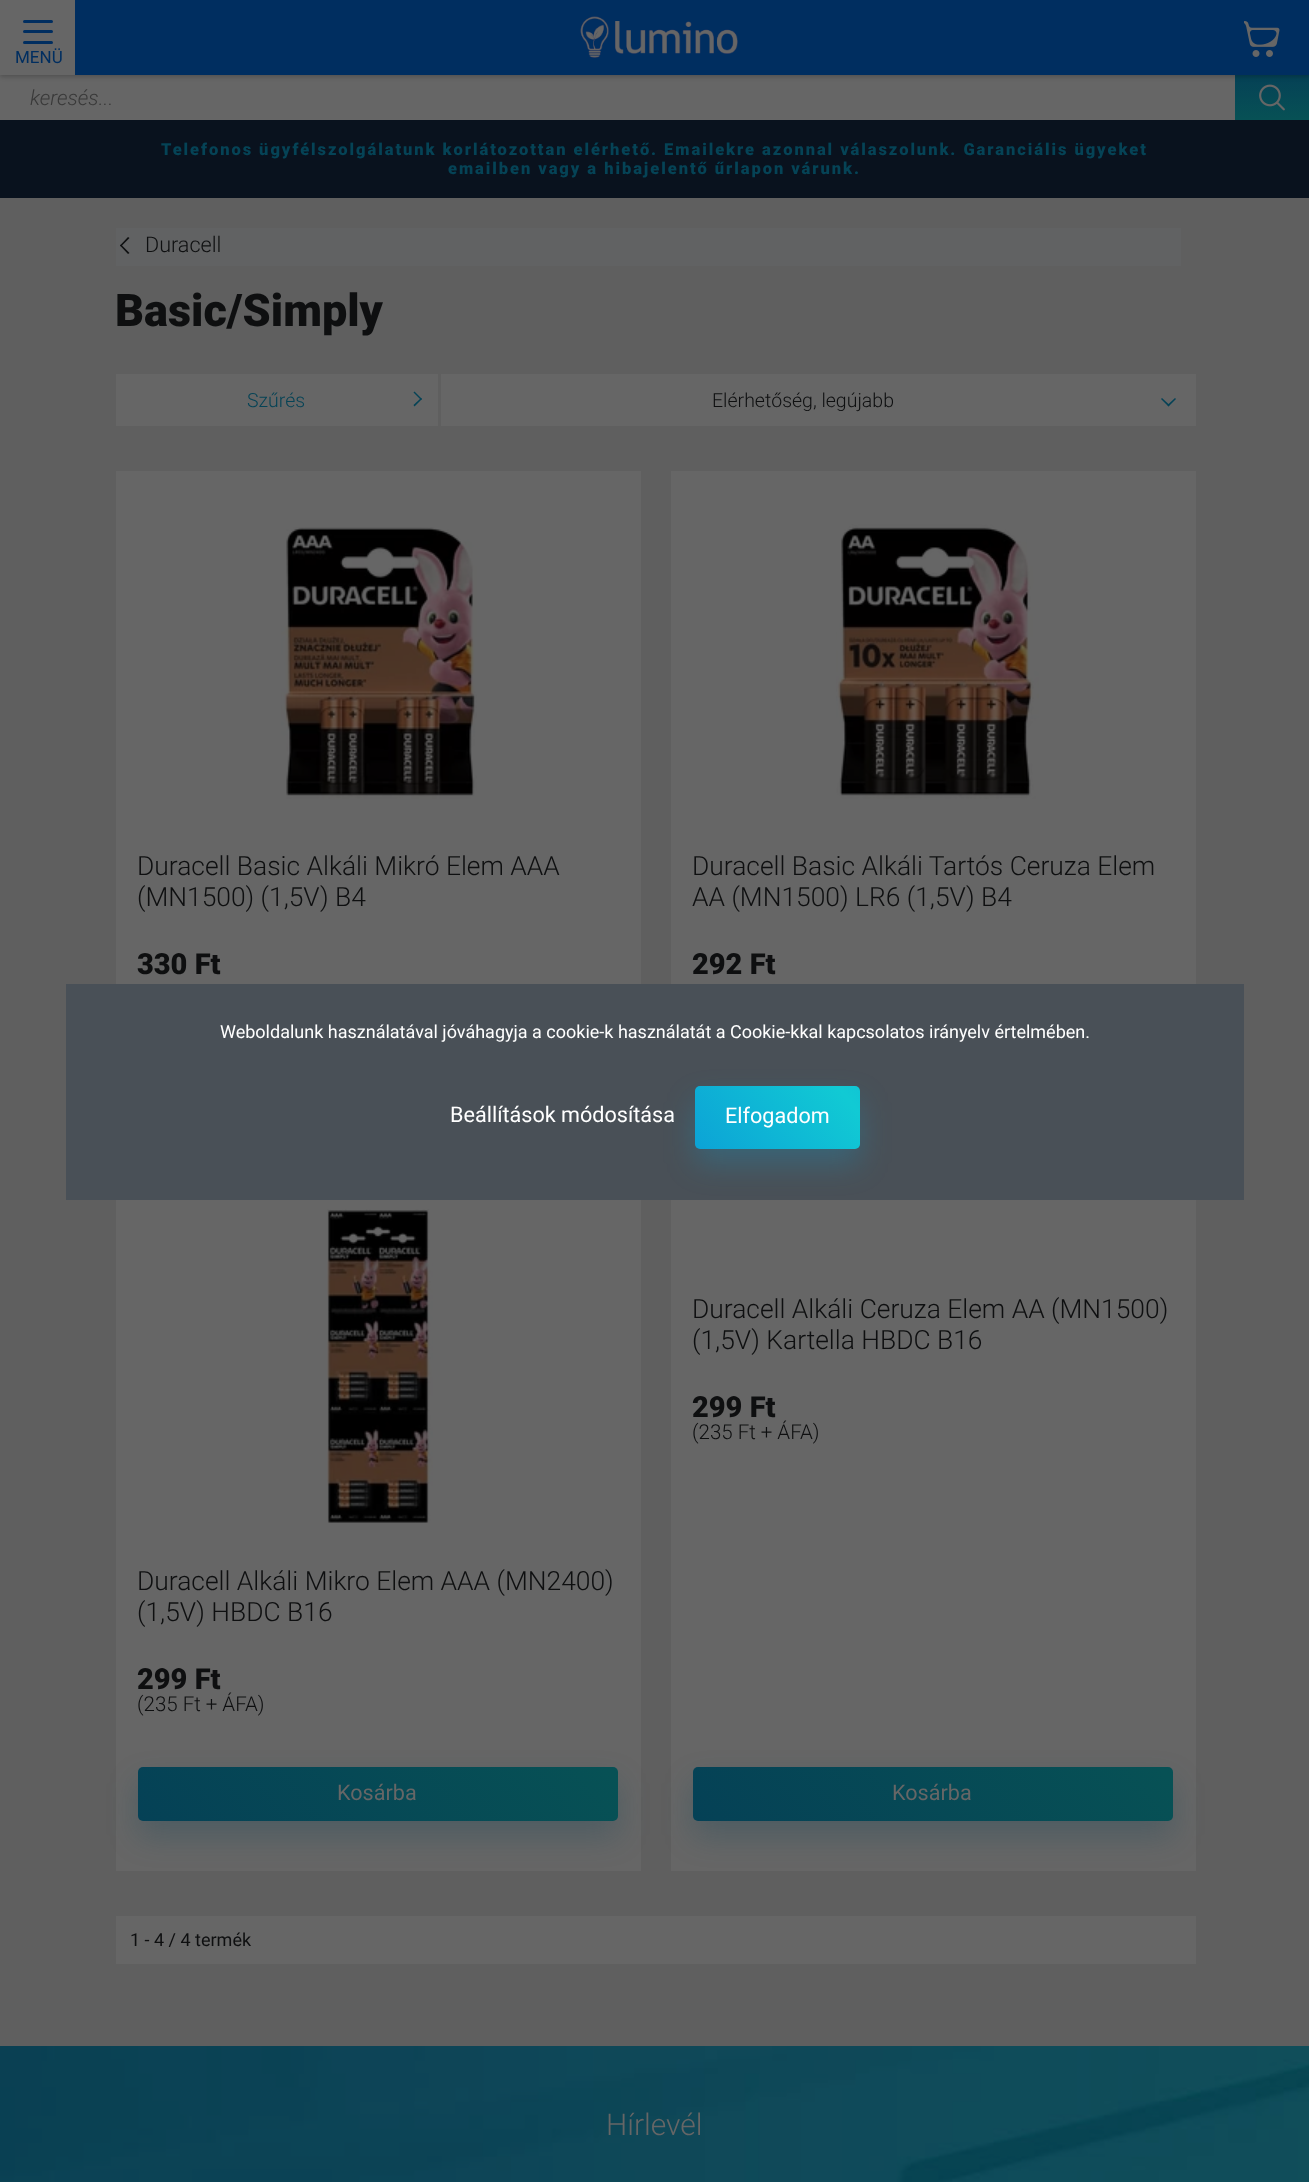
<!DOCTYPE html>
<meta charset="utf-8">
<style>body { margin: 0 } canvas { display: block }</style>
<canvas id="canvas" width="1309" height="2182"></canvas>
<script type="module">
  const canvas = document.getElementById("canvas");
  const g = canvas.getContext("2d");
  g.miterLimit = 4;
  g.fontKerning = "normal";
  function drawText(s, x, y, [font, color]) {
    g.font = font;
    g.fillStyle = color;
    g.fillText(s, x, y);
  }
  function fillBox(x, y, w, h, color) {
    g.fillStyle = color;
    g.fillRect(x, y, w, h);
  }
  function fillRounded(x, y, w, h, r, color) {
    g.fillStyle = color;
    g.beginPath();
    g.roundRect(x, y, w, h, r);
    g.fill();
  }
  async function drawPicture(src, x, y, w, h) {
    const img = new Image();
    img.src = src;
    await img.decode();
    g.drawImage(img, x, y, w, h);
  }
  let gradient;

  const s1 = ["17px Roboto", "#002E60"];
  const s2 = ["italic 300 21px Roboto", "#393939"];
  const s3 = ["900 16.5px Roboto", "#054356"];
  const s4 = ["300 21.6px Roboto", "#0E0F10"];
  const s5 = ["900 45px Roboto", "#0E0F10"];
  const s6 = ["300 19.5px Roboto", "#054356"];
  const s7 = ["300 19.5px Roboto", "#0E0F10"];
  const s8 = ["300 26.4px Roboto", "#0E0F10"];
  const s9 = ["900 29px Roboto", "#0E0F10"];
  const s10 = ["300 20.5px Roboto", "#0E0F10"];
  const s11 = ["21.6px Roboto", "#666666"];
  const s12 = ["18px Roboto", "#0E0F10"];
  const s13 = ["300 30px Roboto", "#666666"];
  const s14 = ["18px Roboto", "#FFFFFF"];
  const s15 = ["21.6px Roboto", "#FFFFFF"];

  fillBox(0, 0, 1309, 2182, "#5F5F5F");
  fillBox(0, 75, 1235, 45, "#666666");
  gradient = g.createLinearGradient(1272, 75, 1272, 120);
  gradient.addColorStop(0, "#054156");
  gradient.addColorStop(1, "#075155");
  g.fillStyle = gradient;
  g.fillRect(1235, 75, 74, 45);
  g.fillStyle = "rgba(0, 0, 0, 0.2)";
  g.filter = "blur(2px)";
  g.beginPath();
  g.rect(0, 2, 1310, 75);
  g.fill();
  g.filter = "none";
  fillBox(75, 0, 1234, 75, "#002E60");
  fillBox(0, 0, 75, 75, "#666666");
  fillRounded(23, 20, 30, 3, 1.5, "#002E60");
  fillRounded(23, 30, 30, 3, 1.5, "#002E60");
  fillRounded(23, 41, 30, 3, 1.5, "#002E60");
  drawText("MENÜ", 15, 63, s1);
  await drawPicture("pic1.png", 580, 16, 158, 42);
  await drawPicture("pic2.png", 1244, 21, 36, 36);
  drawText("keresés...", 30, 105, s2);
  await drawPicture("pic3.png", 1259, 84, 26, 27);
  fillBox(0, 120, 1309, 78, "#09121E");
  g.letterSpacing = "1.95px";
  drawText("Telefonos ügyfélszolgálatunk korlátozottan elérhető. Emailekre azonnal válaszolunk. Garanciális ügyeket", 161, 155, s3);
  drawText("emailben vagy a hibajelentő űrlapon várunk.", 448, 174, s3);
  fillBox(116, 228, 1065, 38, "#616263");
  g.fillStyle = "#0E0F10";
  g.beginPath();
  g.moveTo(129.5, 253);
  g.lineTo(128, 254);
  g.lineTo(120, 245.5);
  g.lineTo(121, 244.5);
  g.closePath();
  g.fill();
  g.beginPath();
  g.moveTo(129.5, 238);
  g.lineTo(121, 246.5);
  g.lineTo(120, 245.5);
  g.lineTo(128, 237);
  g.closePath();
  g.fill();
  g.letterSpacing = "0px";
  drawText("Duracell", 145, 252, s4);
  drawText("Basic/Simply", 115, 326, s5);
  fillBox(116, 374, 322, 52, "#666666");
  drawText("Szűrés", 247, 407, s6);
  g.beginPath();
  g.moveTo(413.5, 392.5);
  g.lineTo(414.5, 391.5);
  g.lineTo(422, 399);
  g.lineTo(421, 400);
  g.closePath();
  g.fill();
  g.beginPath();
  g.moveTo(413.5, 405);
  g.lineTo(421, 398);
  g.lineTo(422, 399);
  g.lineTo(414.5, 406.5);
  g.closePath();
  g.fill();
  fillBox(441, 374, 755, 52, "#666666");
  drawText("Elérhetőség, legújabb", 712, 407, s7);
  g.fillStyle = "#054256";
  g.beginPath();
  g.moveTo(1175, 398);
  g.lineTo(1176, 399);
  g.lineTo(1168.5, 406.5);
  g.lineTo(1167.5, 405);
  g.closePath();
  g.fill();
  g.beginPath();
  g.moveTo(1162, 398);
  g.lineTo(1169.5, 405);
  g.lineTo(1168.5, 406.5);
  g.lineTo(1161, 399);
  g.closePath();
  g.fill();
  fillBox(116, 471, 525, 513, "#666666");
  await drawPicture("pic4.png", 281, 527, 196, 272);
  drawText("Duracell Basic Alkáli Mikró Elem AAA", 137, 875, s8);
  drawText("(MN1500) (1,5V) B4", 137, 906, s8);
  drawText("330 Ft", 137, 974, s9);
  fillBox(671, 471, 525, 513, "#666666");
  await drawPicture("pic5.png", 836, 524, 203, 275);
  drawText("Duracell Basic Alkáli Tartós Ceruza Elem", 692, 875, s8);
  drawText("AA (MN1500) LR6 (1,5V) B4", 692, 906, s8);
  drawText("292 Ft", 692, 974, s9);
  fillBox(116, 1200, 525, 671, "#666666");
  await drawPicture("pic6.png", 327, 1209, 106, 314);
  drawText("Duracell Alkáli Mikro Elem AAA (MN2400)", 137, 1590, s8);
  drawText("(1,5V) HBDC B16", 137, 1621, s8);
  drawText("299 Ft", 137, 1689, s9);
  drawText("(235 Ft + ÁFA)", 137, 1711, s10);
  g.fillStyle = "rgba(5, 65, 86, 0.25)";
  g.filter = "blur(15px)";
  g.beginPath();
  g.roundRect(138, 1782, 480, 54, 5);
  g.fill();
  g.filter = "none";
  gradient = g.createLinearGradient(323, 2042, 913, 1546);
  gradient.addColorStop(0, "#054156");
  gradient.addColorStop(0.51, "#075155");
  gradient.addColorStop(1, "#054156");
  g.fillStyle = gradient;
  g.beginPath();
  g.roundRect(138, 1767, 480, 54, 5);
  g.fill();
  drawText("Kosárba", 337, 1800, s11);
  fillBox(671, 1200, 525, 671, "#666666");
  drawText("Duracell Alkáli Ceruza Elem AA (MN1500)", 692, 1318, s8);
  drawText("(1,5V) Kartella HBDC B16", 692, 1349, s8);
  drawText("299 Ft", 692, 1417, s9);
  drawText("(235 Ft + ÁFA)", 692, 1439, s10);
  g.fillStyle = "rgba(5, 65, 86, 0.25)";
  g.filter = "blur(15px)";
  g.beginPath();
  g.roundRect(693, 1782, 480, 54, 5);
  g.fill();
  g.filter = "none";
  gradient = g.createLinearGradient(878, 2042, 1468, 1546);
  gradient.addColorStop(0, "#054156");
  gradient.addColorStop(0.51, "#075155");
  gradient.addColorStop(1, "#054156");
  g.fillStyle = gradient;
  g.beginPath();
  g.roundRect(693, 1767, 480, 54, 5);
  g.fill();
  drawText("Kosárba", 892, 1800, s11);
  fillBox(116, 1916, 1080, 48, "#666666");
  drawText("1 - 4 / 4 termék", 130, 1946, s12);
  await drawPicture("pic7.png", 0, 2046, 1309, 136);
  drawText("Hírlevél", 606, 2135, s13);
  fillBox(66, 984, 1178, 216, "#495057");
  drawText("Weboldalunk használatával jóváhagyja a cookie-k használatát a Cookie-kkal kapcsolatos irányelv értelmében.", 220, 1038, s14);
  drawText("Beállítások módosítása", 450, 1122, s15);
  g.fillStyle = "rgba(12, 163, 214, 0.25)";
  g.filter = "blur(15px)";
  g.beginPath();
  g.roundRect(695, 1101, 165, 63, 5);
  g.fill();
  g.filter = "none";
  gradient = g.createLinearGradient(747, 1211, 972, 1023);
  gradient.addColorStop(0, "#0CA3D6");
  gradient.addColorStop(0.51, "#11CAD4");
  gradient.addColorStop(1, "#0CA3D6");
  g.fillStyle = gradient;
  g.beginPath();
  g.roundRect(695, 1086, 165, 63, 5);
  g.fill();
  drawText("Elfogadom", 725, 1123, s15);
</script>
